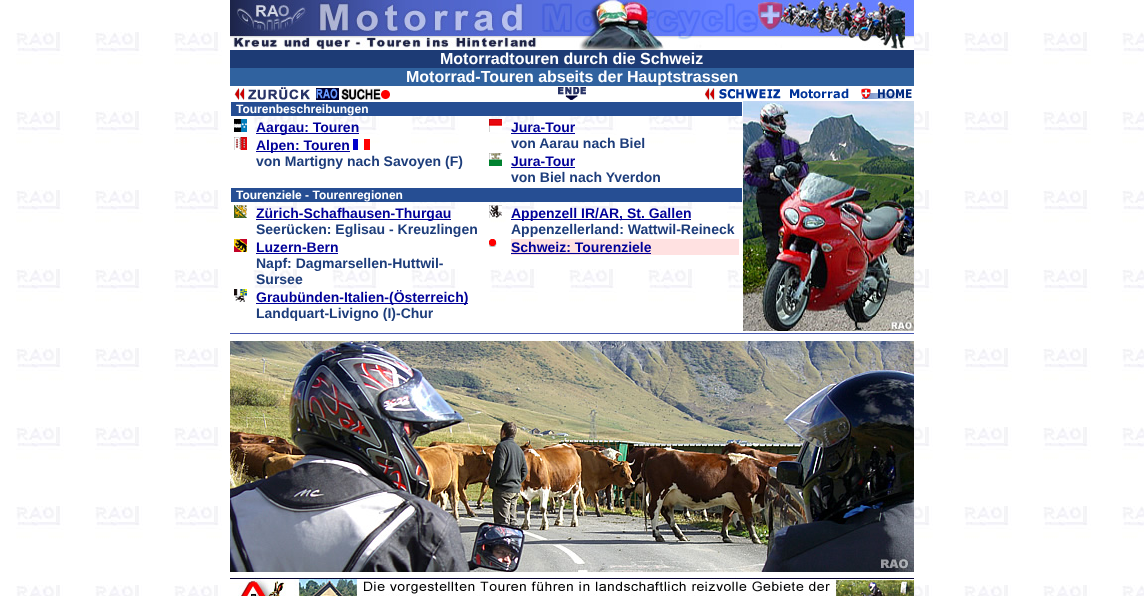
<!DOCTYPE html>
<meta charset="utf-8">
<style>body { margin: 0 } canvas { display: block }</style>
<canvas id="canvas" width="1144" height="596"></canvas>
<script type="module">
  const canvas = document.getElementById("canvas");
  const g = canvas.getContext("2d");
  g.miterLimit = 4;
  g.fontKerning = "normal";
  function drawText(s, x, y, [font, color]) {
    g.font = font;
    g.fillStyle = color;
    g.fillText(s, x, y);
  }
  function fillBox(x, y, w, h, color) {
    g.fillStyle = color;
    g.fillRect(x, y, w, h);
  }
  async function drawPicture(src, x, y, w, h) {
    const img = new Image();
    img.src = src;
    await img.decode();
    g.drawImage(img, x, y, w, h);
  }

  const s1 = ["bold 16px Liberation Sans", "#FFFFFF"];
  const s2 = ["bold 12px Liberation Sans", "#FFFFFF"];
  const s3 = ["bold 14px Liberation Sans", "#000099"];
  const s4 = ["bold 14px Liberation Sans", "#1D3D7B"];

  fillBox(0, 0, 1144, 596, "#FFFFFF");
  await drawPicture("pic1.png", 16, 32, 1128, 564);
  await drawPicture("pic2.png", 230, 0, 684, 50);
  fillBox(230, 50, 684, 18, "#1D3B75");
  drawText("Motorradtouren durch die Schweiz", 440, 64, s1);
  fillBox(230, 68, 684, 18, "#30629F");
  drawText("Motorrad-Touren abseits der Hauptstrassen", 406, 82, s1);
  await drawPicture("pic3.png", 234, 87, 76, 13);
  await drawPicture("pic4.png", 316, 88, 74, 12);
  await drawPicture("pic5.png", 558, 87, 28, 13);
  await drawPicture("pic6.png", 705, 88, 207, 12);
  fillBox(231, 102, 511, 14, "#264E93");
  drawText("Tourenbeschreibungen", 236, 113, s2);
  await drawPicture("pic7.png", 234, 119, 13, 13);
  fillBox(256, 133, 103, 1, "#000099");
  drawText("Aargau: Touren", 256, 132, s3);
  await drawPicture("pic8.png", 234, 137, 13, 13);
  fillBox(256, 151, 94, 1, "#000099");
  drawText("Alpen: Touren", 256, 150, s3);
  await drawPicture("pic9.png", 353, 139, 17, 11);
  drawText("von Martigny nach Savoyen (F)", 256, 166, s4);
  await drawPicture("pic10.png", 489, 119, 13, 13);
  drawText("Jura-Tour", 511, 132, s3);
  fillBox(511, 133, 64, 1, "#000099");
  drawText("von Aarau nach Biel", 511, 148, s4);
  await drawPicture("pic11.png", 489, 153, 13, 13);
  drawText("Jura-Tour", 511, 166, s3);
  fillBox(511, 167, 64, 1, "#000099");
  drawText("von Biel nach Yverdon", 511, 182, s4);
  fillBox(231, 188, 511, 14, "#264E93");
  drawText("Tourenziele - Tourenregionen", 236, 199, s2);
  await drawPicture("pic12.png", 234, 205, 13, 13);
  fillBox(256, 219, 195, 1, "#000099");
  drawText("Zürich-Schafhausen-Thurgau", 256, 218, s3);
  drawText("Seerücken: Eglisau - Kreuzlingen", 256, 234, s4);
  await drawPicture("pic13.png", 234, 239, 13, 13);
  drawText("Luzern-Bern", 256, 252, s3);
  fillBox(256, 253, 82, 1, "#000099");
  drawText("Napf: Dagmarsellen-Huttwil-", 256, 268, s4);
  drawText("Sursee", 256, 284, s4);
  await drawPicture("pic14.png", 234, 289, 13, 13);
  fillBox(256, 303, 212, 1, "#000099");
  drawText("Graubünden-Italien-(Österreich)", 256, 302, s3);
  drawText("Landquart-Livigno (I)-Chur", 256, 318, s4);
  await drawPicture("pic15.png", 489, 205, 13, 13);
  fillBox(511, 219, 180, 1, "#000099");
  drawText("Appenzell IR/AR, St. Gallen", 511, 218, s3);
  drawText("Appenzellerland: Wattwil-Reineck", 511, 234, s4);
  await drawPicture("pic16.png", 489, 239, 8, 8);
  fillBox(511, 239, 228, 16, "#FFE1E1");
  drawText("Schweiz: Tourenziele", 511, 252, s3);
  fillBox(511, 253, 140, 1, "#000099");
  await drawPicture("pic17.png", 743, 101, 171, 230);
  fillBox(230, 333, 684, 1, "#4759B3");
  await drawPicture("pic18.png", 230, 341, 684, 231);
  await drawPicture("pic19.png", 230, 577, 684, 19);
</script>
